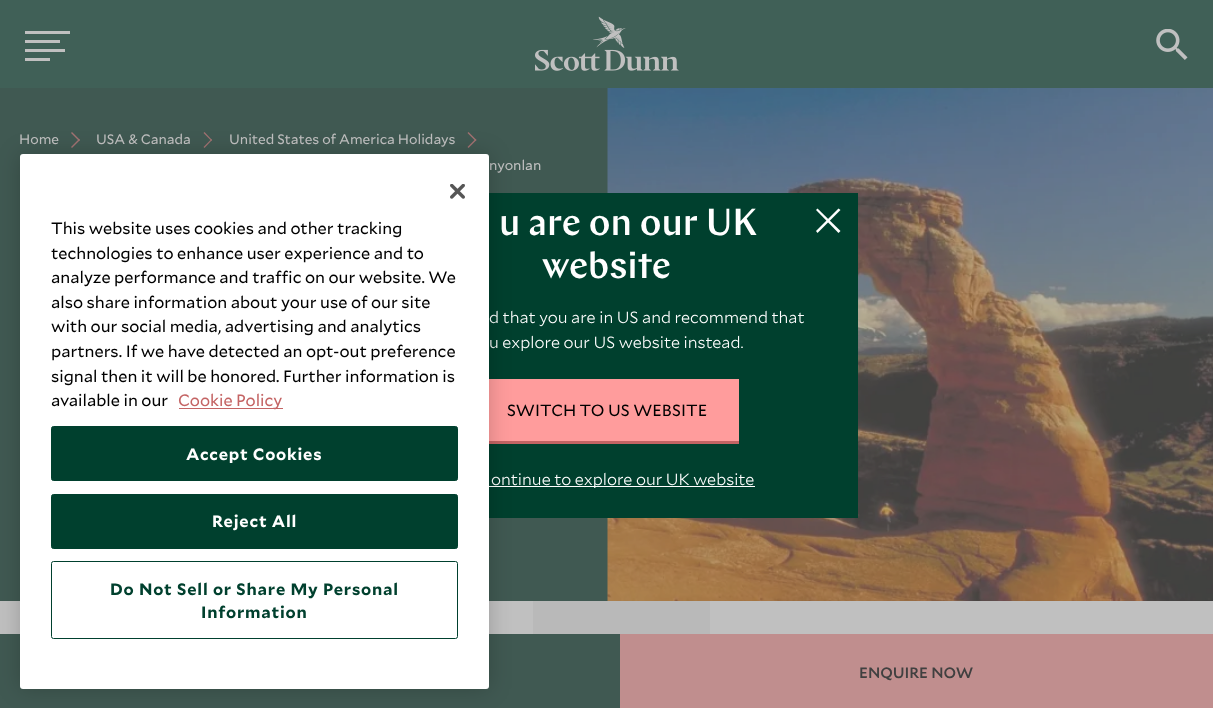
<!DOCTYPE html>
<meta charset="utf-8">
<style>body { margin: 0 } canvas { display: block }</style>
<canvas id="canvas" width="1213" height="708"></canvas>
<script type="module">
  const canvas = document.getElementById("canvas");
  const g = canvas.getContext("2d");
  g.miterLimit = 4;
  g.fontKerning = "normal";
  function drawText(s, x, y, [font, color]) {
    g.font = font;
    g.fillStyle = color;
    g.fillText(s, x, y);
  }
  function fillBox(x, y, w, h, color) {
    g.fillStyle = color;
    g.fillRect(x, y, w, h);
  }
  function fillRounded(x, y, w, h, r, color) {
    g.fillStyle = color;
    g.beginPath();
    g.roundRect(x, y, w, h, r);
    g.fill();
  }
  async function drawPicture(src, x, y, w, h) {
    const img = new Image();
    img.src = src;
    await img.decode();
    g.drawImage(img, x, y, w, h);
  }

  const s1 = ["13.75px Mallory", "#C0C0C0"];
  const s2 = ["500 37.5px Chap", "#FFFFFF"];
  const s3 = ["300 16.25px Mallory", "#FFFFFF"];
  const s4 = ["16.25px Mallory", "#000000"];
  const s5 = ["16.4px Mallory", "#000000"];
  const s6 = ["16.4px Mallory", "#C46464"];
  const s7 = ["bold 16.4px Mallory", "#FFFFFF"];
  const s8 = ["bold 16.4px Mallory", "#00402E"];
  const s9 = ["500 15px Mallory", "#404040"];

  fillBox(0, 0, 1213, 708, "#405952");
  drawText("Home", 19, 144, s1);
  g.fillStyle = "#A27272";
  g.beginPath();
  g.moveTo(72, 132);
  g.lineTo(80, 140);
  g.lineTo(79, 141);
  g.lineTo(71, 133);
  g.closePath();
  g.fill();
  g.beginPath();
  g.moveTo(79, 139);
  g.lineTo(80, 140);
  g.lineTo(72, 148);
  g.lineTo(71, 147);
  g.closePath();
  g.fill();
  drawText("USA & Canada", 96, 144, s1);
  g.fillStyle = "#A27272";
  g.beginPath();
  g.moveTo(204.5, 132);
  g.lineTo(212, 140);
  g.lineTo(211.5, 141);
  g.lineTo(203.5, 133);
  g.closePath();
  g.fill();
  g.beginPath();
  g.moveTo(211.5, 139);
  g.lineTo(212, 140);
  g.lineTo(204.5, 148);
  g.lineTo(203.5, 147);
  g.closePath();
  g.fill();
  drawText("United States of America Holidays", 229, 144, s1);
  g.fillStyle = "#A27272";
  g.beginPath();
  g.moveTo(468.5, 132);
  g.lineTo(476.5, 140);
  g.lineTo(475.5, 141);
  g.lineTo(467.5, 133);
  g.closePath();
  g.fill();
  g.beginPath();
  g.moveTo(475.5, 139);
  g.lineTo(476.5, 140);
  g.lineTo(468.5, 148);
  g.lineTo(467.5, 147);
  g.closePath();
  g.fill();
  drawText("nyonlan", 489, 170, s1);
  await drawPicture("pic1.png", 607, 88, 606, 513);
  fillBox(489, 193, 369, 325, "#00402E");
  drawText("u are on our UK", 499, 235, s2);
  drawText("website", 542, 278, s2);
  g.beginPath();
  g.moveTo(838.5, 208.5);
  g.lineTo(840.5, 210);
  g.lineTo(817.5, 233);
  g.lineTo(816, 231);
  g.closePath();
  g.fill();
  g.beginPath();
  g.moveTo(816, 210);
  g.lineTo(817.5, 208.5);
  g.lineTo(840.5, 231);
  g.lineTo(838.5, 233);
  g.closePath();
  g.fill();
  drawText("d that you are in US and recommend that", 489, 323, s3);
  drawText("u explore our US website instead.", 489, 348, s3);
  g.fillStyle = "#C46464";
  g.beginPath();
  g.moveTo(475, 441);
  g.lineTo(475, 444);
  g.lineTo(739, 444);
  g.lineTo(739, 381);
  g.lineTo(739, 441);
  g.closePath();
  g.fill();
  fillBox(489, 379, 250, 62, "#FF9C9C");
  drawText("SWITCH TO US WEBSITE", 507, 416, s4);
  fillBox(489, 486, 266, 1, "#FFFFFF");
  drawText("ontinue to explore our UK website", 491, 485, s3);
  fillBox(0, 601, 1213, 33, "#C0C0C0");
  fillBox(533, 601, 177, 33, "#B9B9B9");
  g.fillStyle = "rgba(0, 0, 0, 0.2)";
  g.filter = "blur(11px)";
  g.beginPath();
  g.roundRect(20, 154, 469, 535, 3);
  g.fill();
  g.filter = "none";
  fillRounded(20, 154, 469, 535, 3, "#FFFFFF");
  await drawPicture("pic2.png", 450, 184, 15, 15);
  drawText("This website uses cookies and other tracking", 51, 234, s5);
  drawText("technologies to enhance user experience and to", 51, 259, s5);
  drawText("analyze performance and traffic on our website. We", 51, 283, s5);
  drawText("also share information about your use of our site", 51, 308, s5);
  drawText("with our social media, advertising and analytics", 51, 332, s5);
  drawText("partners. If we have detected an opt-out preference", 51, 357, s5);
  drawText("signal then it will be honored. Further information is", 51, 382, s5);
  drawText("available in our", 51, 406, s5);
  fillBox(179, 408, 104, 1, "#C46464");
  drawText("Cookie Policy", 178, 406, s6);
  g.fillStyle = "#00402E";
  g.beginPath();
  g.roundRect(51.5, 426.5, 406, 54, 2);
  g.fill();
  g.strokeStyle = "#00402E";
  g.stroke();
  g.letterSpacing = "0.8px";
  drawText("Accept Cookies", 186, 460, s7);
  g.fillStyle = "#00402E";
  g.beginPath();
  g.roundRect(51.5, 494.5, 406, 54, 2);
  g.fill();
  g.stroke();
  drawText("Reject All", 212, 527, s7);
  g.beginPath();
  g.roundRect(51.5, 561.5, 406, 77, 2);
  g.stroke();
  drawText("Do Not Sell or Share My Personal", 110, 595, s8);
  drawText("Information", 201, 618, s8);
  fillBox(0, 0, 1213, 88, "#406057");
  fillBox(25, 31, 45, 3, "#C0C0C0");
  fillBox(25, 40, 35, 3, "#C0C0C0");
  fillBox(25, 49, 40, 3, "#C0C0C0");
  fillBox(25, 58, 25, 3, "#C0C0C0");
  await drawPicture("pic3.png", 535, 16, 144, 55);
  await drawPicture("pic4.png", 1156, 29, 32, 31);
  fillBox(620, 634, 593, 74, "#C08E8E");
  g.letterSpacing = "0px";
  drawText("ENQUIRE NOW", 859, 678, s9);
</script>
